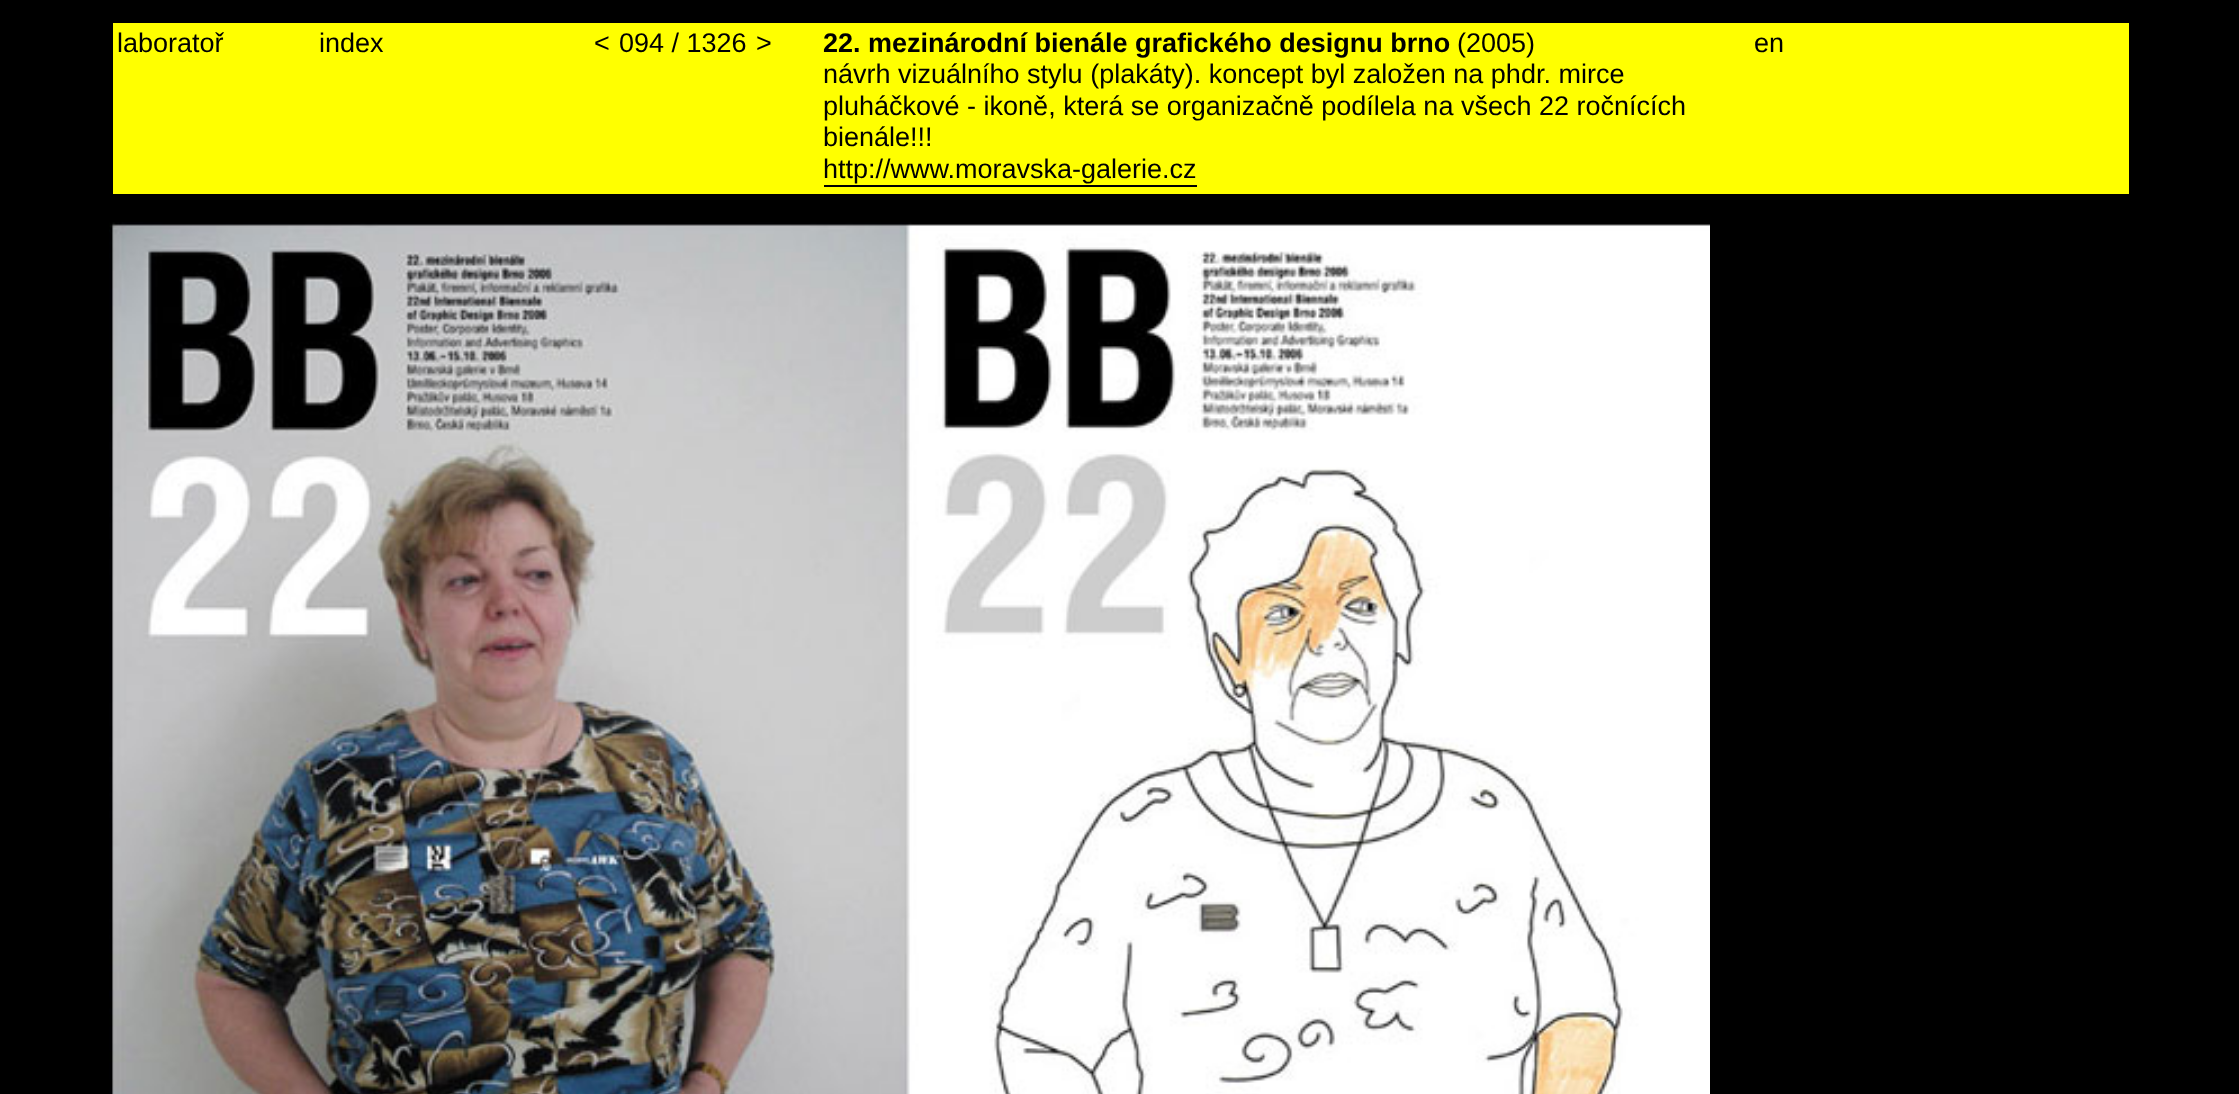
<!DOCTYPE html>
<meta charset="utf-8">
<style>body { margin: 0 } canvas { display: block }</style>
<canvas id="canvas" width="2239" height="1094"></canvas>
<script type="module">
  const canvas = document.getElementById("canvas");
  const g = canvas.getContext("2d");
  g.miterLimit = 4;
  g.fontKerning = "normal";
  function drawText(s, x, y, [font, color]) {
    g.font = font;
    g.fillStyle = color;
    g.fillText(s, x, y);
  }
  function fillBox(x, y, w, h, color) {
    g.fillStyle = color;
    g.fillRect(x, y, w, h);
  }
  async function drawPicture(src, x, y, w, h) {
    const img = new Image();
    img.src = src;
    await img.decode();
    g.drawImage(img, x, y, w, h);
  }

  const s1 = ["27px Liberation Sans", "#000000"];
  const s2 = ["bold 27px Liberation Sans", "#000000"];

  fillBox(0, 0, 2239, 1094, "#000000");
  fillBox(113, 23, 2016, 171, "#FFFF00");
  drawText("laboratoř", 117, 52, s1);
  drawText("index", 319, 52, s1);
  drawText("<", 594, 52, s1);
  drawText("094 / 1326", 619, 52, s1);
  drawText(">", 756, 52, s1);
  drawText("22. mezinárodní bienále grafického designu brno", 823, 52, s2);
  drawText("(2005)", 1457, 52, s1);
  drawText("návrh vizuálního stylu (plakáty). koncept byl založen na phdr. mirce", 823, 83, s1);
  drawText("pluháčkové - ikoně, která se organizačně podílela na všech 22 ročnících", 823, 115, s1);
  drawText("bienále!!!", 823, 146, s1);
  drawText("http://www.moravska-galerie.cz", 823, 178, s1);
  fillBox(824, 185, 373, 2, "#000000");
  drawText("en", 1754, 52, s1);
  await drawPicture("pic1.png", 109, 222, 1601, 872);
</script>
